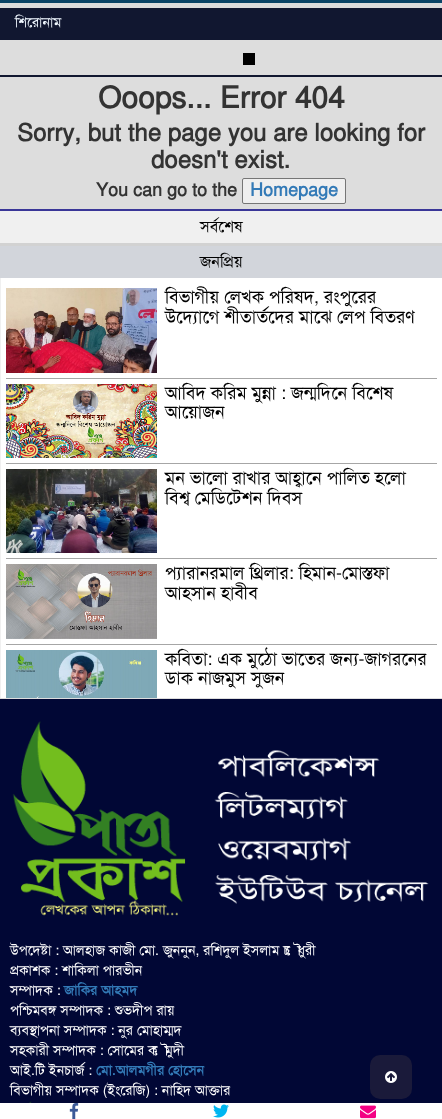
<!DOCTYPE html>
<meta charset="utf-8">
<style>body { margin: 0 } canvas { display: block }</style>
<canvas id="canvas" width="442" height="1119"></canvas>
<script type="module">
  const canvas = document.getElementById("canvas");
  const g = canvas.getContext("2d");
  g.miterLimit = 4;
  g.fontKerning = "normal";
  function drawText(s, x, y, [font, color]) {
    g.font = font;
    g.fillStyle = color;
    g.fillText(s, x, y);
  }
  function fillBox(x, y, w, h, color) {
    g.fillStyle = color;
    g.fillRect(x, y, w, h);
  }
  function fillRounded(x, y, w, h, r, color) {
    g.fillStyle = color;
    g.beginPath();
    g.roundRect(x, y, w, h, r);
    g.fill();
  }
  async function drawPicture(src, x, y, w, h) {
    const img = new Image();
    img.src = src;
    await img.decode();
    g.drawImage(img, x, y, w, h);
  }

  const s1 = ["14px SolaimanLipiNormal", "#F0F8FF"];
  const s2 = ["bold 30px SolaimanLipiNormal", "#333333"];
  const s3 = ["bold 24px SolaimanLipiNormal", "#333333"];
  const s4 = ["bold 18px SolaimanLipiNormal", "#333333"];
  const s5 = ["bold 18px SolaimanLipiNormal", "#337AB7"];
  const s6 = ["16px SolaimanLipiNormal", "#000000"];
  const s7 = ["18px SolaimanLipiNormal", "#000000"];
  const s8 = ["14px SolaimanLipiNormal", "#FFFFFF"];
  const s9 = ["bold 14px SolaimanLipiNormal", "#337AB7"];

  fillBox(0, 0, 442, 1119, "#DDDDDD");
  fillBox(0, 0, 442, 3, "#0A4466");
  fillBox(0, 8, 442, 32, "#111730");
  drawText("শিরোনাম", 15, 27, s1);
  fillBox(0, 75, 442, 2, "#111730");
  fillBox(243, 53, 12, 12, "#000000");
  drawText("Ooops... Error 404", 98, 108, s2);
  drawText("Sorry, but the page you are looking for", 17, 141, s3);
  drawText("doesn't exist.", 151, 168, s3);
  drawText("You can go to the", 96, 196, s4);
  g.fillStyle = "#EFEFEF";
  g.beginPath();
  g.roundRect(242.5, 178.5, 103, 25, 1.5);
  g.fill();
  g.strokeStyle = "#767676";
  g.stroke();
  drawText("Homepage", 250, 196, s5);
  fillBox(1, 278, 441, 420, "#FFFFFF");
  fillBox(0, 246, 442, 32, "#D2D5DB");
  fillBox(0, 211, 442, 32, "#F0F0F0");
  fillBox(0, 209, 442, 2, "#3A3698");
  drawText("সর্বশেষ", 200, 232, s6);
  fillBox(0, 243, 442, 3, "#D2D2D2");
  drawText("জনপ্রিয়", 200, 267, s6);
  fillBox(0, 278, 1, 420, "#F0F0F0");
  fillBox(6, 378, 431, 1, "#A6A6A6");
  await drawPicture("pic1.png", 6, 288, 151, 85);
  drawText("বিভাগীয় লেখক পরিষদ, রংপুরের", 165, 303, s7);
  drawText("উদ্যোগে শীতার্তদের মাঝে লেপ বিতরণ", 165, 323, s7);
  fillBox(6, 463, 431, 1, "#A6A6A6");
  await drawPicture("pic2.png", 6, 384, 151, 74);
  drawText("আবিদ করিম মুন্না : জন্মদিনে বিশেষ", 165, 399, s7);
  drawText("আয়োজন", 165, 418, s7);
  fillBox(6, 558, 431, 1, "#A6A6A6");
  await drawPicture("pic3.png", 6, 469, 151, 84);
  drawText("মন ভালো রাখার আহ্বানে পালিত হলো", 165, 484, s7);
  drawText("বিশ্ব মেডিটেশন দিবস", 165, 504, s7);
  fillBox(6, 644, 431, 1, "#A6A6A6");
  await drawPicture("pic4.png", 6, 564, 151, 75);
  drawText("প্যারানরমাল থ্রিলার: হিমান-মোস্তফা", 165, 579, s7);
  drawText("আহসান হাবীব", 165, 599, s7);
  await drawPicture("pic5.png", 6, 650, 151, 48);
  drawText("কবিতা: এক মুঠো ভাতের জন্য-জাগরনের", 165, 665, s7);
  drawText("ডাক নাজমুস সুজন", 165, 684, s7);
  fillBox(0, 699, 442, 404, "#010735");
  await drawPicture("pic6.png", 12, 721, 417, 195);
  drawText("উপদেষ্টা : আলহাজ কাজী মো. জুননুন, রশিদুল ইসলাম চৌধুরী", 10, 955, s8);
  drawText("প্রকাশক : শাকিলা পারভীন", 10, 975, s8);
  drawText("সম্পাদক :", 10, 995, s8);
  drawText("জাকির আহমদ", 64, 995, s9);
  drawText("পশ্চিমবঙ্গ সম্পাদক : শুভদীপ রায়", 10, 1015, s8);
  drawText("ব্যবস্থাপনা সম্পাদক : নুর মোহাম্মদ", 10, 1035, s8);
  drawText("সহকারী সম্পাদক : সোমের কৌমুদী", 10, 1055, s8);
  drawText("আই.টি ইনচার্জ :", 10, 1075, s8);
  drawText("মো.আলমগীর হোসেন", 96, 1075, s9);
  drawText("বিভাগীয় সম্পাদক (ইংরেজি) : নাহিদ আক্তার", 10, 1095, s8);
  await drawPicture("pic7.png", 23, 1101, 24, 2);
  fillRounded(370, 1055, 42, 44, 10, "#1A1A3A");
  await drawPicture("pic8.png", 385, 1071, 12, 12);
  fillBox(0, 1103, 442, 16, "#FFFFFF");
  await drawPicture("pic9.png", 69, 1103, 10, 16);
  await drawPicture("pic10.png", 213, 1104, 16, 14);
  await drawPicture("pic11.png", 360, 1105, 16, 14);
</script>
